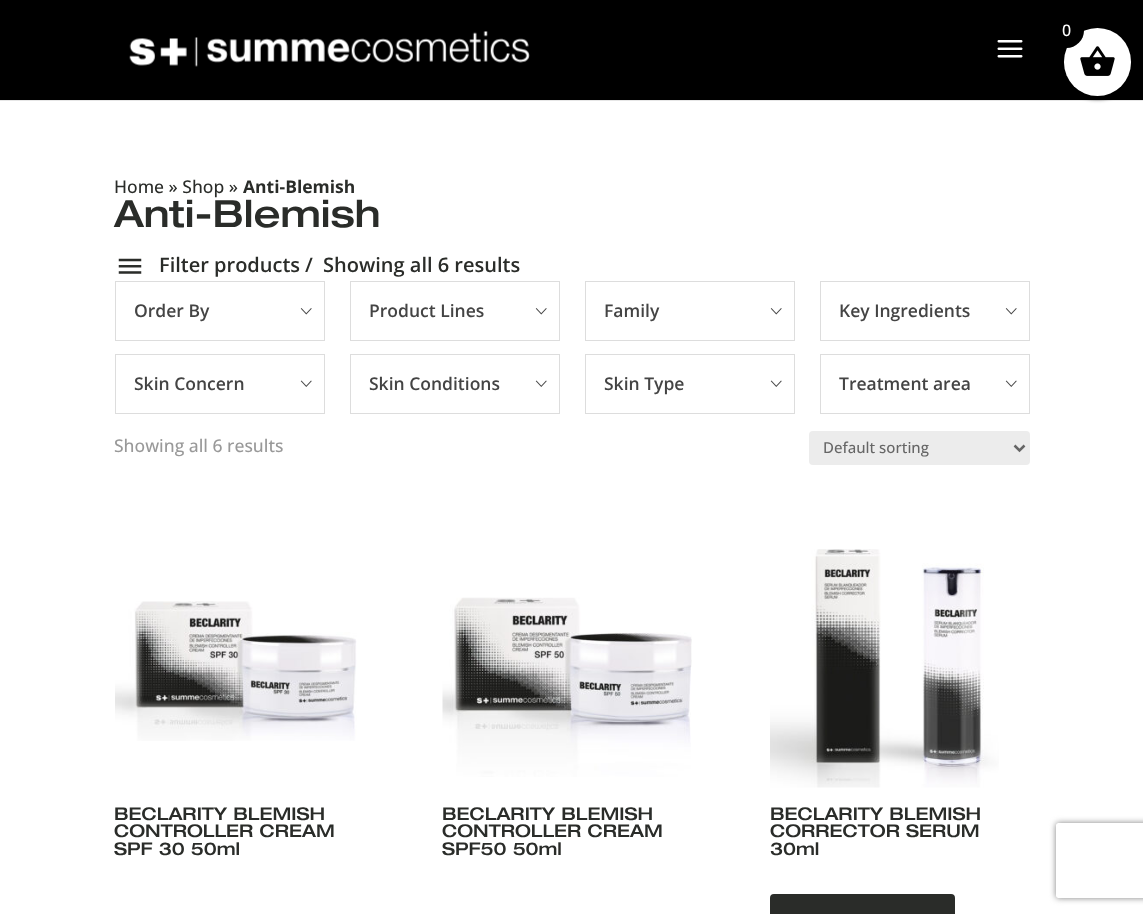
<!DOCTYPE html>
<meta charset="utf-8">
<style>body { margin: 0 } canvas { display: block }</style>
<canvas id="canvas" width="1143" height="914"></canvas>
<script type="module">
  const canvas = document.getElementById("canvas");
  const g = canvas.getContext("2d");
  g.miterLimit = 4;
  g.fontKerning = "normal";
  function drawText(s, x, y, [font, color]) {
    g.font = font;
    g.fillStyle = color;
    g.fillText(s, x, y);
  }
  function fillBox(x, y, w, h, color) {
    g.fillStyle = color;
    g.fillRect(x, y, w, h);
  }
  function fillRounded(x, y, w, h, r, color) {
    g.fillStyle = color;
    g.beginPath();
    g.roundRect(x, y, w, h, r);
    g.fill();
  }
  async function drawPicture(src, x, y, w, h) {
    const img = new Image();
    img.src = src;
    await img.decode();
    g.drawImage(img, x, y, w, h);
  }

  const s1 = ["500 16px Open Sans", "#FFFFFF"];
  const s2 = ["500 17.5px Open Sans", "#2A2C29"];
  const s3 = ["bold 17.5px Open Sans", "#2A2C29"];
  const s4 = ["500 37.5px Helvetica Neue", "#2A2C29"];
  const s5 = ["600 20px Open Sans", "#2A2C29"];
  const s6 = ["600 17.5px Open Sans", "#444444"];
  const s7 = ["500 17.5px Open Sans", "#999999"];
  const s8 = ["500 15px Open Sans", "#666666"];
  const s9 = ["500 17.5px Helvetica Neue", "#2A2C29"];

  fillBox(0, 0, 1143, 914, "#FFFFFF");
  g.fillStyle = "#E6E6E6";
  g.beginPath();
  g.moveTo(0, 100);
  g.lineTo(0, 101);
  g.lineTo(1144, 101);
  g.lineTo(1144, 1);
  g.lineTo(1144, 100);
  g.closePath();
  g.fill();
  fillBox(0, 0, 1143, 100, "#000000");
  g.filter = "blur(2.5px)";
  g.beginPath();
  g.roundRect(1064, 29, 67, 69, 33.5);
  g.fill();
  g.filter = "none";
  fillRounded(1064, 28, 67, 68, 33.5, "#FFFFFF");
  g.fillStyle = "#000000";
  g.beginPath();
  g.arc(1066.5, 30.5, 17.5, 0, Math.PI * 2);
  g.fill();
  drawText("0", 1062, 36, s1);
  await drawPicture("pic1.png", 1080, 46, 35, 30);
  await drawPicture("pic2.png", 129, 31, 401, 36);
  await drawPicture("pic3.png", 997, 40, 26, 18);
  drawText("Home » Shop »", 114, 193, s2);
  drawText("Anti-Blemish", 243, 193, s3);
  drawText("Anti-Blemish", 114, 227, s4);
  await drawPicture("pic4.png", 118, 258, 24, 16);
  drawText("Filter products", 159, 272, s5);
  drawText("/", 305, 272, s5);
  drawText("Showing all 6 results", 323, 272, s5);
  g.strokeStyle = "#DDDDDD";
  g.strokeRect(115.5, 281.5, 209, 59);
  drawText("Order By", 134, 317, s6);
  await drawPicture("pic5.png", 300, 308, 12, 7);
  g.strokeRect(350.5, 281.5, 209, 59);
  drawText("Product Lines", 369, 317, s6);
  await drawPicture("pic5.png", 535, 308, 12, 7);
  g.strokeRect(585.5, 281.5, 209, 59);
  drawText("Family", 604, 317, s6);
  await drawPicture("pic5.png", 770, 308, 12, 7);
  g.strokeRect(820.5, 281.5, 209, 59);
  drawText("Key Ingredients", 839, 317, s6);
  await drawPicture("pic5.png", 1005, 308, 12, 7);
  g.strokeRect(115.5, 354.5, 209, 59);
  drawText("Skin Concern", 134, 390, s6);
  await drawPicture("pic6.png", 300, 380, 12, 7);
  g.strokeRect(350.5, 354.5, 209, 59);
  drawText("Skin Conditions", 369, 390, s6);
  await drawPicture("pic6.png", 535, 380, 12, 7);
  g.strokeRect(585.5, 354.5, 209, 59);
  drawText("Skin Type", 604, 390, s6);
  await drawPicture("pic6.png", 770, 380, 12, 7);
  g.strokeRect(820.5, 354.5, 209, 59);
  drawText("Treatment area", 839, 390, s6);
  await drawPicture("pic6.png", 1005, 380, 12, 7);
  drawText("Showing all 6 results", 114, 452, s7);
  fillRounded(809, 431, 221, 34, 4, "#ECECEC");
  g.beginPath();
  g.moveTo(1014.5, 445.5);
  g.lineTo(1019.5, 450.5);
  g.lineTo(1024.5, 445.5);
  g.strokeStyle = "#666666";
  g.lineWidth = 2.5;
  g.stroke();
  drawText("Default sorting", 823, 453, s8);
  await drawPicture("pic7.png", 115, 601, 242, 140);
  drawText("BECLARITY BLEMISH", 114, 820, s9);
  drawText("CONTROLLER CREAM", 114, 837, s9);
  drawText("SPF 30 50ml", 114, 855, s9);
  await drawPicture("pic8.png", 442, 597, 250, 180);
  drawText("BECLARITY BLEMISH", 442, 820, s9);
  drawText("CONTROLLER CREAM", 442, 837, s9);
  drawText("SPF50 50ml", 442, 855, s9);
  await drawPicture("pic9.png", 770, 549, 229, 239);
  drawText("BECLARITY BLEMISH", 770, 820, s9);
  drawText("CORRECTOR SERUM", 770, 837, s9);
  drawText("30ml", 770, 855, s9);
  g.beginPath();
  g.roundRect(771.5, 895.5, 182, 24, 2.5);
  g.fill();
  g.strokeStyle = "#2A2C29";
  g.lineWidth = 3;
  g.stroke();
  g.save();
  g.beginPath();
  g.moveTo(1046, 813);
  g.lineTo(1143, 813);
  g.lineTo(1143, 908);
  g.lineTo(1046, 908);
  g.closePath();
  g.moveTo(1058.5, 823);
  g.lineTo(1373.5, 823);
  g.bezierCurveTo(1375, 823, 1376, 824, 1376, 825.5);
  g.lineTo(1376, 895.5);
  g.bezierCurveTo(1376, 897, 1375, 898, 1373.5, 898);
  g.lineTo(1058.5, 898);
  g.bezierCurveTo(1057, 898, 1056, 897, 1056, 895.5);
  g.lineTo(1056, 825.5);
  g.bezierCurveTo(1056, 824, 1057, 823, 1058.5, 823);
  g.closePath();
  g.clip("evenodd");
  g.fillStyle = "#808080";
  g.filter = "blur(3px)";
  g.beginPath();
  g.roundRect(1056, 823, 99, 75, 2.5);
  g.fill();
  g.filter = "none";
  g.restore();
</script>
